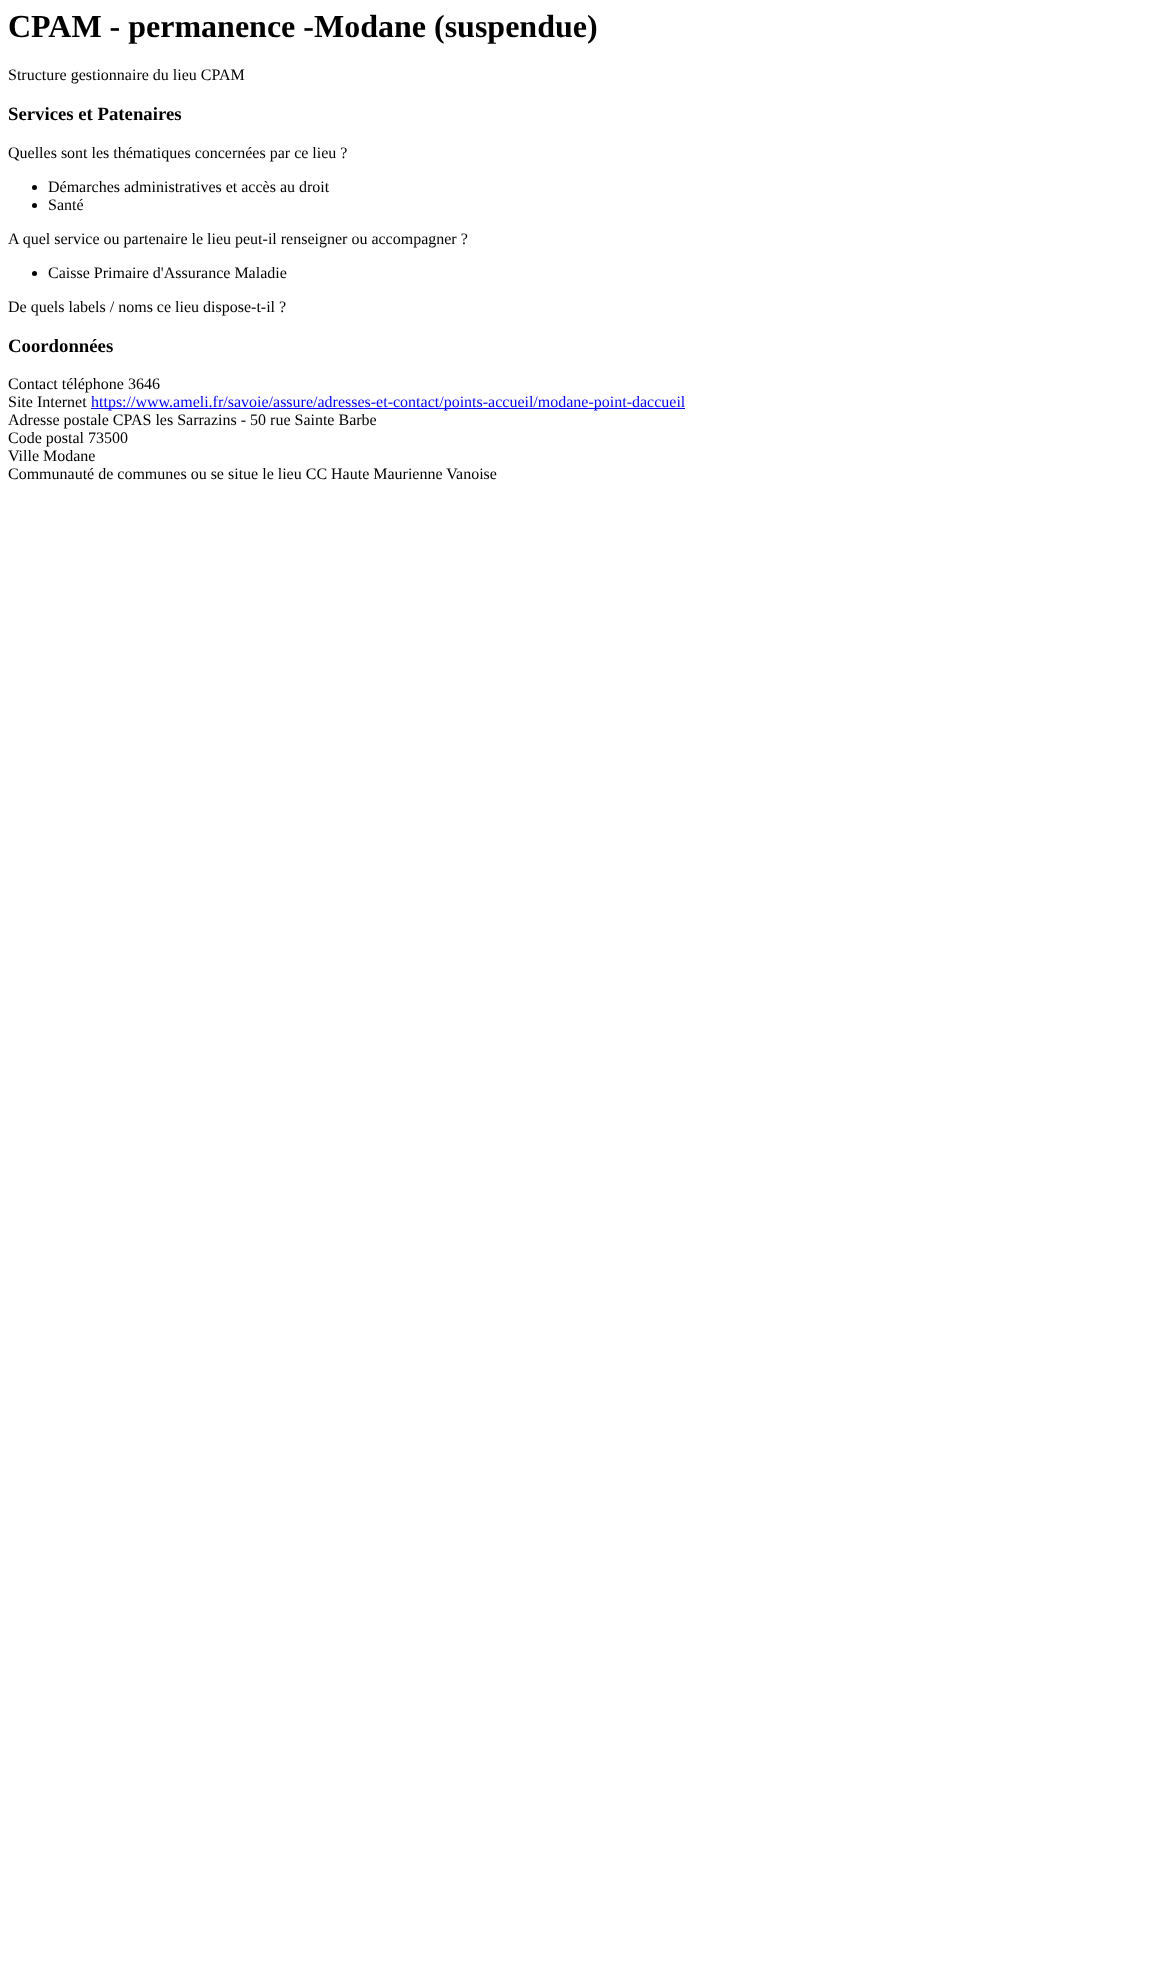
<!DOCTYPE html>
<meta charset="utf-8">
<style>body { margin: 0 } canvas { display: block }</style>
<canvas id="canvas" width="1171" height="1983"></canvas>
<script type="module">
  const canvas = document.getElementById("canvas");
  const g = canvas.getContext("2d");
  g.miterLimit = 4;
  g.fontKerning = "normal";
  function drawText(s, x, y, [font, color]) {
    g.font = font;
    g.fillStyle = color;
    g.fillText(s, x, y);
  }
  function fillBox(x, y, w, h, color) {
    g.fillStyle = color;
    g.fillRect(x, y, w, h);
  }

  const s1 = ["bold 32px Liberation Serif", "#000000"];
  const s2 = ["16px Liberation Serif", "#000000"];
  const s3 = ["bold 18.75px Liberation Serif", "#000000"];
  const s4 = ["16px Liberation Serif", "#0000EE"];

  fillBox(0, 0, 1171, 1983, "#FFFFFF");
  drawText("CPAM - permanence -Modane (suspendue)", 8, 37, s1);
  drawText("Structure gestionnaire du lieu CPAM", 8, 80, s2);
  drawText("Services et Patenaires", 8, 120, s3);
  drawText("Quelles sont les thématiques concernées par ce lieu ?", 8, 158, s2);
  g.beginPath();
  g.arc(34.5, 187.5, 2.5, 0, Math.PI * 2);
  g.fill();
  drawText("Démarches administratives et accès au droit", 48, 192, s2);
  g.beginPath();
  g.arc(34.5, 205.5, 2.5, 0, Math.PI * 2);
  g.fill();
  drawText("Santé", 48, 210, s2);
  drawText("A quel service ou partenaire le lieu peut-il renseigner ou accompagner ?", 8, 244, s2);
  g.beginPath();
  g.arc(34.5, 273.5, 2.5, 0, Math.PI * 2);
  g.fill();
  drawText("Caisse Primaire d'Assurance Maladie", 48, 278, s2);
  drawText("De quels labels / noms ce lieu dispose-t-il ?", 8, 312, s2);
  drawText("Coordonnées", 8, 352, s3);
  drawText("Contact téléphone 3646", 8, 389, s2);
  drawText("Site Internet", 8, 407, s2);
  fillBox(91, 408, 594, 1, "#0000EE");
  drawText("https://www.ameli.fr/savoie/assure/adresses-et-contact/points-accueil/modane-point-daccueil", 91, 407, s4);
  drawText("Adresse postale CPAS les Sarrazins - 50 rue Sainte Barbe", 8, 425, s2);
  drawText("Code postal 73500", 8, 443, s2);
  drawText("Ville Modane", 8, 461, s2);
  drawText("Communauté de communes ou se situe le lieu CC Haute Maurienne Vanoise", 8, 479, s2);
</script>
